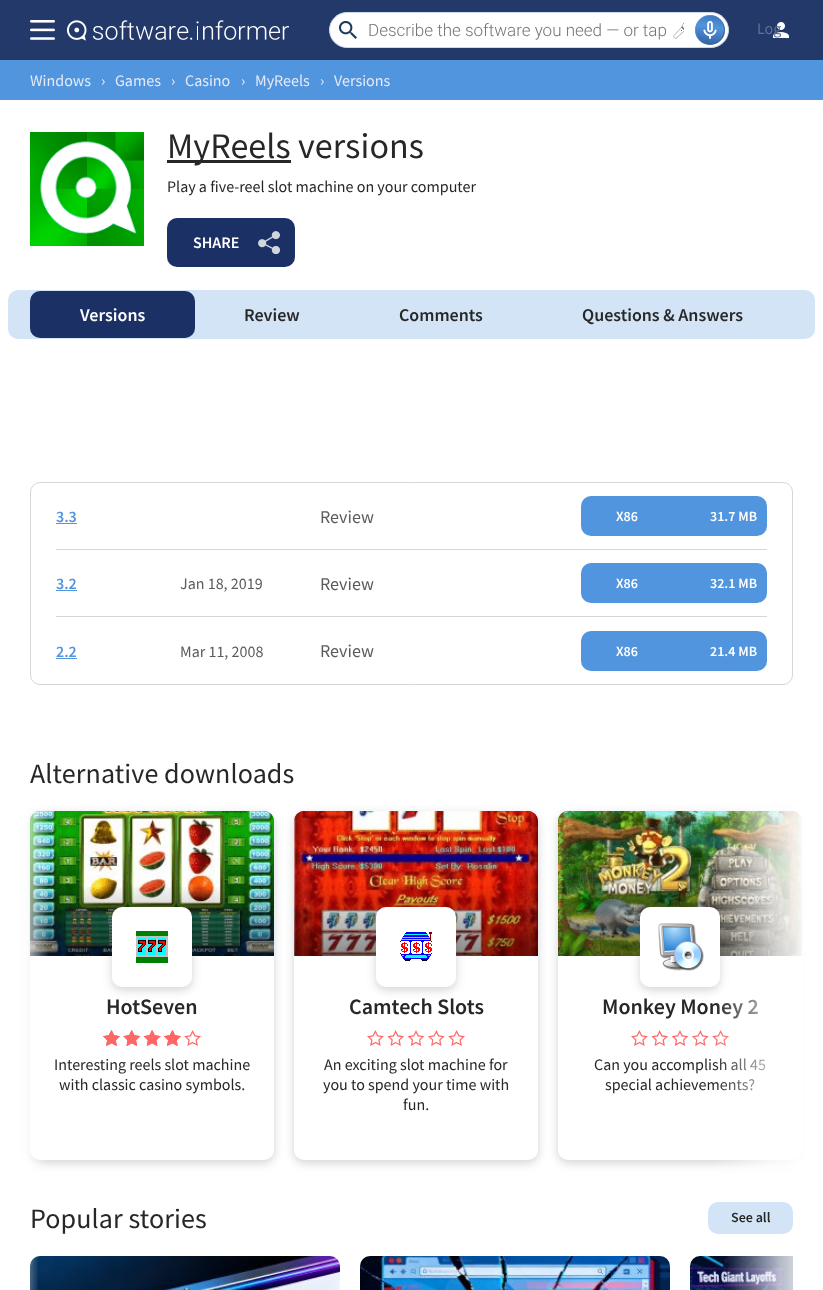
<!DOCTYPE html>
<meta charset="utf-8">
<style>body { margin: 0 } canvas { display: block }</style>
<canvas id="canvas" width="823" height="1290"></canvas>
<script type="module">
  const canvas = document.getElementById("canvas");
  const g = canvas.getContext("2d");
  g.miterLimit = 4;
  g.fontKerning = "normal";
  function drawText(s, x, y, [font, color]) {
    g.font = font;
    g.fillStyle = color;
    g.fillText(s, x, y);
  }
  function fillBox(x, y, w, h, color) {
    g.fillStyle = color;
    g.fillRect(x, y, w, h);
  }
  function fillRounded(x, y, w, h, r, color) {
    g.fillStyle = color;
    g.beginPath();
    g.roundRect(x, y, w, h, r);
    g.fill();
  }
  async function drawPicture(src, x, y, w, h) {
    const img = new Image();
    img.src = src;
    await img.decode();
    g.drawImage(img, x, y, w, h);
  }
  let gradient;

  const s1 = ["300 17px Roboto", "#757575"];
  const s2 = ["300 17px Noto Emoji", "#757575"];
  const s3 = ["16px Source Sans Pro", "#617094"];
  const s4 = ["16px Source Sans Pro", "#E5EAF6"];
  const s5 = ["36px Source Sans Pro", "#272727"];
  const s6 = ["16px Source Sans Pro", "#272727"];
  const s7 = ["600 16px Source Sans Pro", "#FFFFFF"];
  const s8 = ["600 18px Source Sans Pro", "#FFFFFF"];
  const s9 = ["600 18px Source Sans Pro", "#272727"];
  const s10 = ["600 16px Source Sans Pro", "#5195DE"];
  const s11 = ["18px Source Sans Pro", "#5B5B5B"];
  const s12 = ["600 14px Source Sans Pro", "#FFFFFF"];
  const s13 = ["16px Source Sans Pro", "#5B5B5B"];
  const s14 = ["28px Source Sans Pro", "#272727"];
  const s15 = ["600 22px Source Sans Pro", "#272727"];
  const s16 = ["600 14px Source Sans Pro", "#272727"];

  fillBox(0, 0, 823, 1290, "#FFFFFF");
  fillBox(0, 0, 823, 60, "#23396A");
  await drawPicture("pic1.png", 30, 20, 25, 20);
  await drawPicture("pic2.png", 67, 20, 222, 21);
  g.fillStyle = "#FFFFFF";
  g.beginPath();
  g.roundRect(329.5, 12.5, 399, 35, 17.5);
  g.fill();
  g.strokeStyle = "#CDD9ED";
  g.stroke();
  await drawPicture("pic3.png", 339, 20, 18, 19);
  drawText("Describe the software you need — or tap", 368, 36, s1);
  g.save();
  g.beginPath();
  g.rect(368, 20, 316, 20);
  g.clip();
  drawText("🎤", 671, 36, s2);
  drawText("︎", 678, 36, s2);
  g.restore();
  gradient = g.createLinearGradient(671, -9, 725, 43);
  gradient.addColorStop(0.09, "#203973");
  gradient.addColorStop(0.55, "#5195DE");
  gradient.addColorStop(0.92, "#203973");
  g.fillStyle = gradient;
  g.beginPath();
  g.arc(710, 30, 15, 0, Math.PI * 2);
  g.fill();
  g.beginPath();
  g.arc(710, 30, 14.5, 0, Math.PI * 2);
  g.strokeStyle = "rgba(81, 149, 222, 0.5)";
  g.stroke();
  gradient = g.createLinearGradient(703, 58, 716, -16);
  gradient.addColorStop(0, "#203973");
  gradient.addColorStop(0.43, "#5195DE");
  gradient.addColorStop(0.87, "#203973");
  g.fillStyle = gradient;
  g.beginPath();
  g.arc(710, 30, 14, 0, Math.PI * 2);
  g.fill();
  await drawPicture("pic4.png", 703, 21, 14, 18);
  await drawPicture("pic5.png", 773, 22, 16, 16);
  drawText("Log", 757, 34, s3);
  fillBox(0, 60, 823, 40, "#5195DE");
  drawText("Windows", 30, 86, s4);
  drawText("›", 101, 86, s4);
  drawText("Games", 115, 86, s4);
  drawText("›", 171, 86, s4);
  drawText("Casino", 185, 86, s4);
  drawText("›", 241, 86, s4);
  drawText("MyReels", 255, 86, s4);
  drawText("›", 320, 86, s4);
  drawText("Versions", 334, 86, s4);
  await drawPicture("pic6.png", 30, 132, 114, 114);
  fillBox(167, 160, 124, 3, "#272727");
  g.letterSpacing = "0.1px";
  drawText("MyReels versions", 167, 158, s5);
  g.letterSpacing = "0px";
  drawText("Play a five-reel slot machine on your computer", 167, 192, s6);
  fillRounded(167, 218, 128, 49, 10, "#1B3065");
  drawText("SHARE", 193, 248, s7);
  await drawPicture("pic7.png", 258, 231, 22, 23);
  fillRounded(8, 290, 807, 49, 10, "#D3E4F7");
  fillRounded(30, 291, 165, 47, 10, "#1B3065");
  drawText("Versions", 80, 321, s8);
  drawText("Review", 244, 321, s9);
  drawText("Comments", 399, 321, s9);
  drawText("Questions & Answers", 582, 321, s9);
  g.beginPath();
  g.roundRect(30.5, 482.5, 762, 202, 9.5);
  g.strokeStyle = "#D6D6D6";
  g.stroke();
  fillBox(56, 549, 711, 1, "#D6D6D6");
  drawText("3.3", 56, 522, s10);
  fillBox(56, 523, 21, 1, "#5195DE");
  drawText("Review", 320, 523, s11);
  fillRounded(581, 496, 186, 40, 10, "#5195DE");
  drawText("X86", 616, 521, s12);
  drawText("31.7 MB", 710, 521, s12);
  fillBox(56, 616, 711, 1, "#D6D6D6");
  drawText("3.2", 56, 589, s10);
  fillBox(56, 590, 21, 1, "#5195DE");
  drawText("Jan 18, 2019", 180, 589, s13);
  drawText("Review", 320, 590, s11);
  fillRounded(581, 563, 186, 40, 10, "#5195DE");
  drawText("X86", 616, 588, s12);
  drawText("32.1 MB", 710, 588, s12);
  drawText("2.2", 56, 657, s10);
  fillBox(56, 658, 21, 1, "#5195DE");
  drawText("Mar 11, 2008", 180, 657, s13);
  drawText("Review", 320, 657, s11);
  fillRounded(581, 631, 186, 40, 10, "#5195DE");
  drawText("X86", 616, 656, s12);
  drawText("21.4 MB", 710, 656, s12);
  g.letterSpacing = "0.1px";
  drawText("Alternative downloads", 30, 783, s14);
  g.fillStyle = "rgba(60, 72, 78, 0.24)";
  g.filter = "blur(5px)";
  g.beginPath();
  g.roundRect(30, 814, 244, 349, 10);
  g.fill();
  g.filter = "none";
  fillRounded(30, 811, 244, 349, 10, "#FFFFFF");
  g.fillStyle = "#444444";
  g.beginPath();
  g.roundRect(30, 811, 244, 145, [10, 10, 0, 0]);
  g.fill();
  await drawPicture("pic8.png", 30, 811, 244, 145);
  gradient = g.createLinearGradient(152, 811, 152, 956);
  gradient.addColorStop(0, "rgba(0, 0, 0, 0)");
  gradient.addColorStop(0.5, "rgba(0, 0, 0, 0)");
  gradient.addColorStop(1, "rgba(0, 0, 0, 0.46)");
  g.fillStyle = gradient;
  g.fillRect(30, 887, 244, 69);
  gradient = g.createLinearGradient(49, 986, 9, 986);
  gradient.addColorStop(0, "rgba(255, 255, 255, 0)");
  gradient.addColorStop(0.56, "rgba(255, 255, 255, 0.7)");
  gradient.addColorStop(0.96, "#FFFFFF");
  gradient.addColorStop(1, "#FFFFFF");
  g.fillStyle = gradient;
  g.fillRect(23, 810, 25, 357);
  g.fillStyle = "rgba(60, 72, 78, 0.24)";
  g.filter = "blur(5px)";
  g.beginPath();
  g.roundRect(558, 814, 244, 349, 10);
  g.fill();
  g.filter = "none";
  fillRounded(558, 811, 244, 349, 10, "#FFFFFF");
  g.fillStyle = "#444444";
  g.beginPath();
  g.roundRect(558, 811, 244, 145, [10, 10, 0, 0]);
  g.fill();
  await drawPicture("pic15.png", 558, 811, 244, 145);
  gradient = g.createLinearGradient(680, 811, 680, 956);
  gradient.addColorStop(0, "rgba(0, 0, 0, 0)");
  gradient.addColorStop(0.5, "rgba(0, 0, 0, 0)");
  gradient.addColorStop(1, "rgba(0, 0, 0, 0.46)");
  g.fillStyle = gradient;
  g.fillRect(558, 887, 244, 69);
  g.fillStyle = "rgba(60, 72, 78, 0.24)";
  g.filter = "blur(5px)";
  g.beginPath();
  g.roundRect(640, 910, 80, 80, 10);
  g.fill();
  g.filter = "none";
  fillRounded(640, 907, 80, 80, 10, "#FFFFFF");
  g.letterSpacing = "0px";
  drawText("Monkey Money 2", 602, 1014, s15);
  await drawPicture("pic10.png", 631, 1030, 98, 16);
  drawText("Can you accomplish all 45", 594, 1070, s6);
  drawText("special achievements?", 605, 1090, s6);
  gradient = g.createLinearGradient(714, 986, 814, 986);
  gradient.addColorStop(0, "rgba(255, 255, 255, 0)");
  gradient.addColorStop(0.56, "rgba(255, 255, 255, 0.7)");
  gradient.addColorStop(0.96, "#FFFFFF");
  gradient.addColorStop(1, "#FFFFFF");
  g.fillStyle = gradient;
  g.fillRect(716, 807, 94, 363);
  g.fillStyle = "rgba(60, 72, 78, 0.24)";
  g.filter = "blur(5px)";
  g.beginPath();
  g.roundRect(112, 910, 80, 80, 10);
  g.fill();
  g.filter = "none";
  fillRounded(112, 907, 80, 80, 10, "#FFFFFF");
  await drawPicture("pic9.png", 136, 931, 32, 32);
  drawText("HotSeven", 106, 1014, s15);
  await drawPicture("pic10.png", 103, 1030, 98, 16);
  await drawPicture("pic11.png", 103, 1030, 78, 16);
  await drawPicture("pic12.png", 103, 1030, 78, 16);
  drawText("Interesting reels slot machine", 54, 1070, s6);
  drawText("with classic casino symbols.", 59, 1090, s6);
  g.fillStyle = "rgba(60, 72, 78, 0.24)";
  g.filter = "blur(5px)";
  g.beginPath();
  g.roundRect(294, 814, 244, 349, 10);
  g.fill();
  g.filter = "none";
  fillRounded(294, 811, 244, 349, 10, "#FFFFFF");
  g.fillStyle = "#444444";
  g.beginPath();
  g.roundRect(294, 811, 244, 145, [10, 10, 0, 0]);
  g.fill();
  await drawPicture("pic13.png", 294, 811, 244, 145);
  gradient = g.createLinearGradient(416, 811, 416, 956);
  gradient.addColorStop(0, "rgba(0, 0, 0, 0)");
  gradient.addColorStop(0.5, "rgba(0, 0, 0, 0)");
  gradient.addColorStop(1, "rgba(0, 0, 0, 0.46)");
  g.fillStyle = gradient;
  g.fillRect(294, 887, 244, 69);
  g.fillStyle = "rgba(60, 72, 78, 0.24)";
  g.filter = "blur(5px)";
  g.beginPath();
  g.roundRect(376, 910, 80, 80, 10);
  g.fill();
  g.filter = "none";
  fillRounded(376, 907, 80, 80, 10, "#FFFFFF");
  await drawPicture("pic14.png", 400, 932, 32, 29);
  drawText("Camtech Slots", 349, 1014, s15);
  await drawPicture("pic10.png", 367, 1030, 98, 16);
  drawText("An exciting slot machine for", 324, 1070, s6);
  drawText("you to spend your time with", 323, 1090, s6);
  drawText("fun.", 403, 1110, s6);
  await drawPicture("pic16.png", 658, 923, 46, 48);
  g.letterSpacing = "0.1px";
  drawText("Popular stories", 30, 1228, s14);
  fillRounded(708, 1202, 85, 32, 10, "#D3E4F7");
  g.letterSpacing = "0px";
  drawText("See all", 731, 1222, s16);
  fillRounded(30, 1256, 310, 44, 10, "#F0F4F8");
  await drawPicture("pic17.png", 30, 1256, 310, 34);
  fillRounded(360, 1256, 310, 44, 10, "#F0F4F8");
  await drawPicture("pic18.png", 360, 1256, 310, 34);
  g.beginPath();
  g.moveTo(700, 1256);
  g.lineTo(793, 1256);
  g.lineTo(793, 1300);
  g.lineTo(700, 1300);
  g.bezierCurveTo(694.5, 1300, 690, 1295.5, 690, 1290);
  g.lineTo(690, 1266);
  g.bezierCurveTo(690, 1260.5, 694.5, 1256, 700, 1256);
  g.closePath();
  g.fill();
  await drawPicture("pic19.png", 690, 1256, 103, 34);
  gradient = g.createLinearGradient(39, 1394, -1, 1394);
  gradient.addColorStop(0, "rgba(255, 255, 255, 0)");
  gradient.addColorStop(0.56, "rgba(255, 255, 255, 0.7)");
  gradient.addColorStop(0.96, "#FFFFFF");
  gradient.addColorStop(1, "#FFFFFF");
  g.fillStyle = gradient;
  g.fillRect(30, 1256, 8, 34);
</script>
